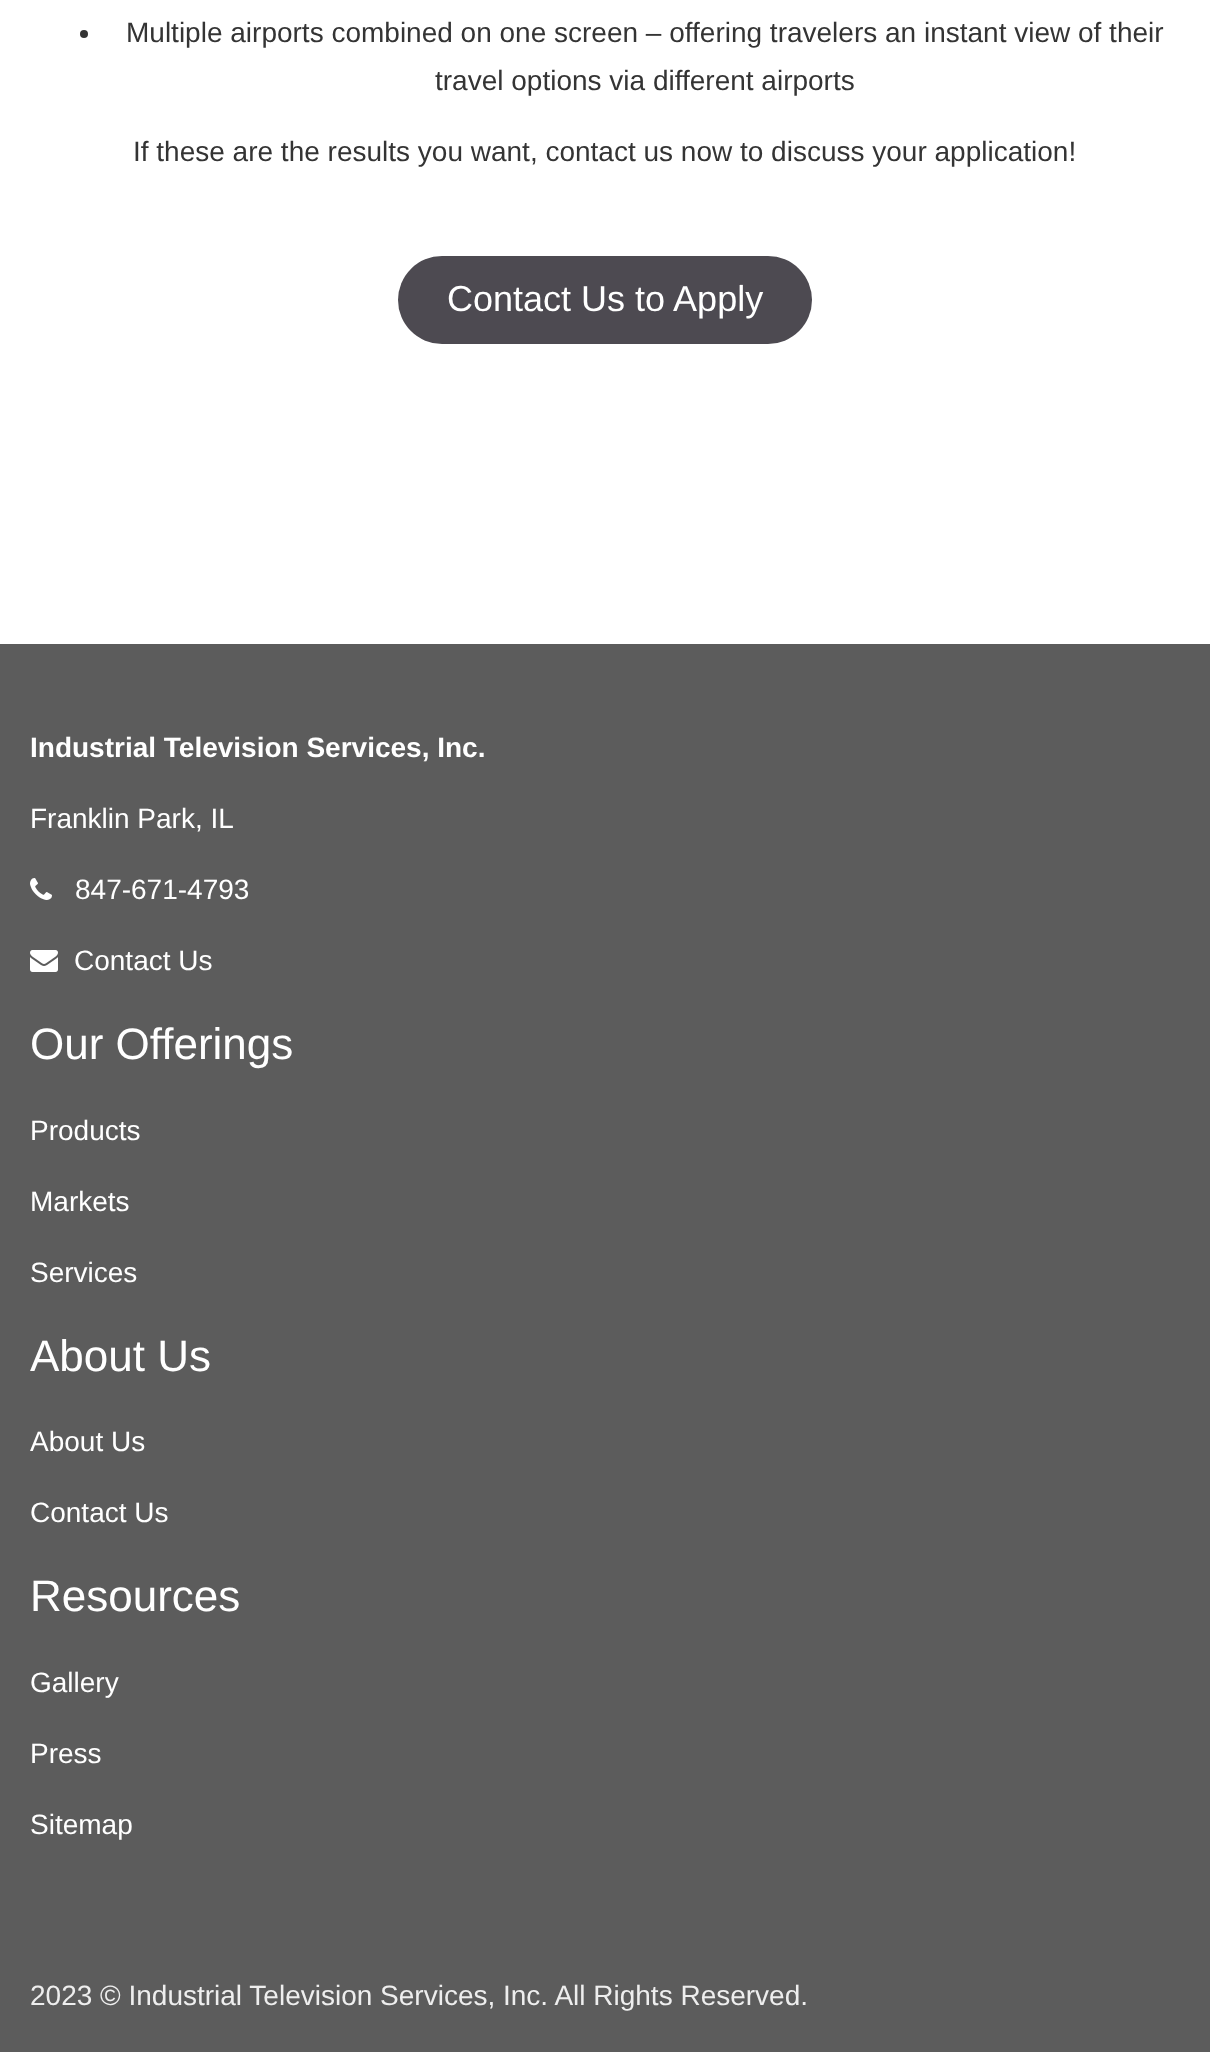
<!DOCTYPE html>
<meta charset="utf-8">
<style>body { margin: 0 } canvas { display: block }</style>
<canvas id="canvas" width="1210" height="2052"></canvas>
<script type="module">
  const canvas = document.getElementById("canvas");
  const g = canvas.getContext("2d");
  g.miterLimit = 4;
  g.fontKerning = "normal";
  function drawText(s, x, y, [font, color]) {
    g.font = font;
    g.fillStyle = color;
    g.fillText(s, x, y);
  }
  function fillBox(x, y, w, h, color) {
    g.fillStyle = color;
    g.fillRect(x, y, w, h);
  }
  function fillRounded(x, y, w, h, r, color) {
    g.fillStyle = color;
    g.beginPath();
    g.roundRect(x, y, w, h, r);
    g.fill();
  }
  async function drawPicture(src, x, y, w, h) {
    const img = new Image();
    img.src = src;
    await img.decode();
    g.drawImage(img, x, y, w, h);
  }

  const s1 = ["28px Liberation Sans", "#343434"];
  const s2 = ["36px Liberation Sans", "#FFFFFF"];
  const s3 = ["bold 28px Liberation Sans", "#FFFFFF"];
  const s4 = ["28px Liberation Sans", "#FFFFFF"];
  const s5 = ["44px Liberation Sans", "#FFFFFF"];
  const s6 = ["28px Liberation Sans", "#EEEEEE"];

  fillBox(0, 0, 1210, 2052, "#FFFFFF");
  g.fillStyle = "#343434";
  g.beginPath();
  g.arc(84, 34, 4, 0, Math.PI * 2);
  g.fill();
  drawText("Multiple airports combined on one screen – offering travelers an instant view of their", 126, 42, s1);
  drawText("travel options via different airports", 435, 90, s1);
  drawText("If these are the results you want, contact us now to discuss your application!", 133, 161, s1);
  fillRounded(398, 256, 414, 88, 44, "#4D4A51");
  drawText("Contact Us to Apply", 447, 311, s2);
  fillBox(0, 644, 1210, 1408, "#5C5C5C");
  drawText("Industrial Television Services, Inc.", 30, 757, s3);
  drawText("Franklin Park, IL", 30, 828, s4);
  await drawPicture("pic1.png", 30, 878, 22, 22);
  drawText("847-671-4793", 75, 899, s4);
  await drawPicture("pic2.png", 30, 950, 28, 22);
  drawText("Contact Us", 74, 970, s4);
  drawText("Our Offerings", 30, 1059, s5);
  drawText("Products", 30, 1140, s4);
  drawText("Markets", 30, 1211, s4);
  drawText("Services", 30, 1282, s4);
  drawText("About Us", 30, 1371, s5);
  drawText("About Us", 30, 1451, s4);
  drawText("Contact Us", 30, 1522, s4);
  drawText("Resources", 30, 1611, s5);
  drawText("Gallery", 30, 1692, s4);
  drawText("Press", 30, 1763, s4);
  drawText("Sitemap", 30, 1834, s4);
  drawText("2023 © Industrial Television Services, Inc. All Rights Reserved.", 30, 2005, s6);
</script>
